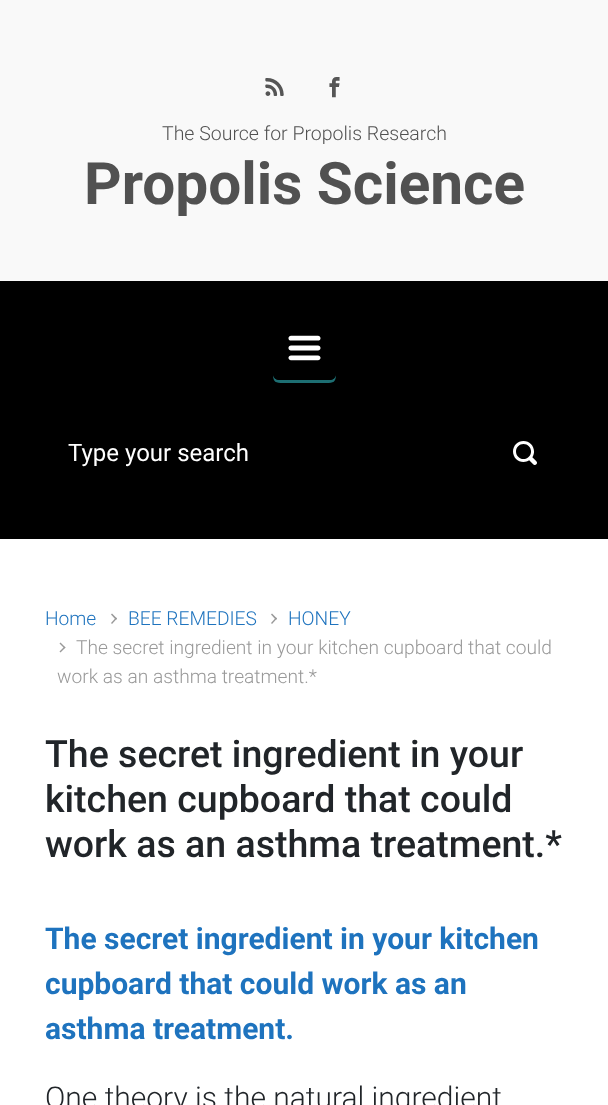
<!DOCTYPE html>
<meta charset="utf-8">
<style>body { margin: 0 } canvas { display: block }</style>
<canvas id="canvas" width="608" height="1105"></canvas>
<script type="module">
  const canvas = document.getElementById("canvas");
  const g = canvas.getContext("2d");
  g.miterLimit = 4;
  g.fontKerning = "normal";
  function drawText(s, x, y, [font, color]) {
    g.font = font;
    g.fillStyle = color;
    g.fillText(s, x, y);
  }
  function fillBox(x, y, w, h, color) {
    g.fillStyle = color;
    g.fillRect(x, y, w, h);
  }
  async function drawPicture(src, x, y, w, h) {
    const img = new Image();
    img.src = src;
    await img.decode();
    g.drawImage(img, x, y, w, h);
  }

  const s1 = ["300 19.5px Roboto", "#515151"];
  const s2 = ["bold 58.5px Roboto", "#515151"];
  const s3 = ["24px Roboto", "#FFFFFF"];
  const s4 = ["300 19.2px Roboto", "#1E73BE"];
  const s5 = ["300 19.2px Roboto", "#999999"];
  const s6 = ["500 37.5px Roboto", "#212529"];
  const s7 = ["bold 30px Roboto", "#1E73BE"];
  const s8 = ["300 30px Roboto", "#212529"];

  fillBox(0, 0, 608, 1105, "#F9F9F9");
  await drawPicture("pic1.png", 265, 78, 19, 18);
  await drawPicture("pic2.png", 329, 77, 11, 21);
  drawText("The Source for Propolis Research", 162, 140, s1);
  drawText("Propolis Science", 84, 204, s2);
  fillBox(0, 281, 608, 258, "#000000");
  g.fillStyle = "#1D6E72";
  g.beginPath();
  g.moveTo(273, 374);
  g.bezierCurveTo(273, 384, 277, 383, 288, 383);
  g.lineTo(322, 383);
  g.bezierCurveTo(332, 383, 336, 384, 336, 374);
  g.bezierCurveTo(336, 377, 333, 380, 330, 380);
  g.lineTo(279, 380);
  g.bezierCurveTo(276, 380, 273, 377, 273, 374);
  g.closePath();
  g.fill();
  g.fillStyle = "#000000";
  g.beginPath();
  g.roundRect(274, 318, 61, 61, 5);
  g.fill();
  g.strokeStyle = "#000000";
  g.lineWidth = 2;
  g.stroke();
  await drawPicture("pic3.png", 288, 335, 33, 26);
  drawText("Type your search", 68, 461, s3);
  await drawPicture("pic4.png", 513, 441, 24, 24);
  fillBox(0, 539, 608, 566, "#FFFFFF");
  drawText("Home", 45, 625, s4);
  g.fillStyle = "#999999";
  g.beginPath();
  g.moveTo(111, 614.5);
  g.lineTo(112, 613.5);
  g.lineTo(117, 618.5);
  g.lineTo(116, 620);
  g.closePath();
  g.fill();
  g.beginPath();
  g.moveTo(111, 623);
  g.lineTo(116, 617.5);
  g.lineTo(117, 618.5);
  g.lineTo(112, 624);
  g.closePath();
  g.fill();
  drawText("BEE REMEDIES", 128, 625, s4);
  g.fillStyle = "#999999";
  g.beginPath();
  g.moveTo(271, 614.5);
  g.lineTo(272, 613.5);
  g.lineTo(277, 618.5);
  g.lineTo(276, 620);
  g.closePath();
  g.fill();
  g.beginPath();
  g.moveTo(271, 623);
  g.lineTo(276, 617.5);
  g.lineTo(277, 618.5);
  g.lineTo(272, 624);
  g.closePath();
  g.fill();
  drawText("HONEY", 288, 625, s4);
  g.fillStyle = "#999999";
  g.beginPath();
  g.moveTo(59.5, 643.5);
  g.lineTo(60.5, 642.5);
  g.lineTo(65.5, 647.5);
  g.lineTo(64.5, 648.5);
  g.closePath();
  g.fill();
  g.beginPath();
  g.moveTo(59.5, 651.5);
  g.lineTo(64.5, 646.5);
  g.lineTo(65.5, 647.5);
  g.lineTo(60.5, 652.5);
  g.closePath();
  g.fill();
  drawText("The secret ingredient in your kitchen cupboard that could", 76, 654, s5);
  drawText("work as an asthma treatment.*", 57, 683, s5);
  drawText("The secret ingredient in your", 45, 767, s6);
  drawText("kitchen cupboard that could", 45, 812, s6);
  drawText("work as an asthma treatment.*", 45, 857, s6);
  drawText("The secret ingredient in your kitchen", 45, 949, s7);
  drawText("cupboard that could work as an", 45, 994, s7);
  drawText("asthma treatment.", 45, 1039, s7);
  drawText("One theory is the natural ingredient", 45, 1108, s8);
</script>
